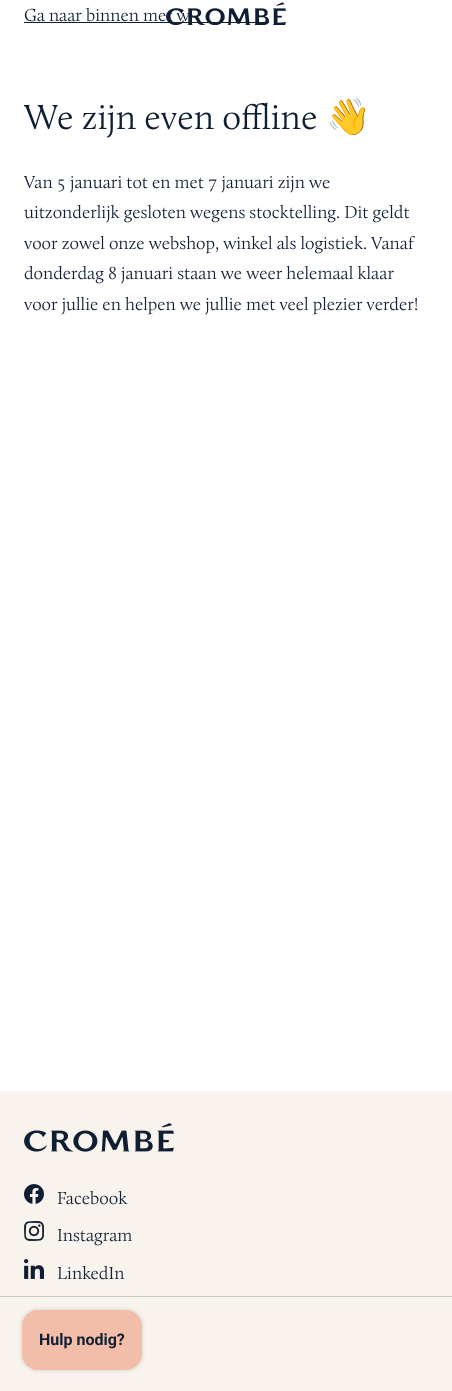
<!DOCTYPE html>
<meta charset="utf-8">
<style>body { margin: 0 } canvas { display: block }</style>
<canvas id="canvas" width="452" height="1391"></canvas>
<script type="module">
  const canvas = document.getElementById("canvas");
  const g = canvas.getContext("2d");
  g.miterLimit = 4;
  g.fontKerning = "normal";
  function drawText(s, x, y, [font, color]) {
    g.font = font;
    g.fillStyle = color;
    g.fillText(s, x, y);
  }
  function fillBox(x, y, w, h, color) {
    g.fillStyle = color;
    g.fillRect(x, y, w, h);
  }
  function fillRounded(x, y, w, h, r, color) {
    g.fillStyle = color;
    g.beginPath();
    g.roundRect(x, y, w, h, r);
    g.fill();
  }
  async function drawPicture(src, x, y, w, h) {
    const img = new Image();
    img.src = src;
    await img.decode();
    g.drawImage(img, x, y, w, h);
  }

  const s1 = ["300 18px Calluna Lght", "#0F1E32"];
  const s2 = ["300 36px Calluna Lght", "#0F1E32"];
  const s3 = ["36px Noto Color Emoji", "#0F1E32"];
  const s4 = ["300 18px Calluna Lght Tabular", "#0F1E32"];
  const s5 = ["bold 16px Roboto", "#0F1E32"];

  fillBox(0, 0, 452, 1391, "#FFFFFF");
  drawText("Ga naar binnen met w", 24, 21, s1);
  fillBox(24, 22, 245, 1, "#0F1E32");
  await drawPicture("pic1.png", 166, 2, 120, 23);
  drawText("We zijn even offline", 24, 129, s2);
  drawText("👋", 326, 129, s3);
  drawText("Van 5 januari tot en met 7 januari zijn we", 24, 188, s4);
  drawText("uitzonderlijk gesloten wegens stocktelling. Dit geldt", 24, 218, s1);
  drawText("voor zowel onze webshop, winkel als logistiek. Vanaf", 24, 249, s1);
  drawText("donderdag 8 januari staan we weer helemaal klaar", 24, 279, s1);
  drawText("voor jullie en helpen we jullie met veel plezier verder!", 24, 310, s1);
  fillBox(0, 1091, 452, 300, "#F9F3ED");
  await drawPicture("pic2.png", 24, 1123, 150, 29);
  await drawPicture("pic3.png", 24, 1184, 20, 20);
  drawText("Facebook", 57, 1204, s1);
  await drawPicture("pic4.png", 24, 1221, 20, 20);
  drawText("Instagram", 57, 1241, s1);
  await drawPicture("pic5.png", 24, 1259, 20, 20);
  drawText("LinkedIn", 57, 1279, s1);
  fillBox(0, 1296, 452, 1, "#CAC8C8");
  g.fillStyle = "rgba(0, 0, 0, 0.15)";
  g.filter = "blur(2.5px)";
  g.beginPath();
  g.roundRect(22, 1310, 120, 60, 16);
  g.fill();
  g.filter = "none";
  fillRounded(22, 1310, 120, 60, 16, "#F3BEA9");
  drawText("Hulp nodig?", 39, 1345, s5);
</script>
